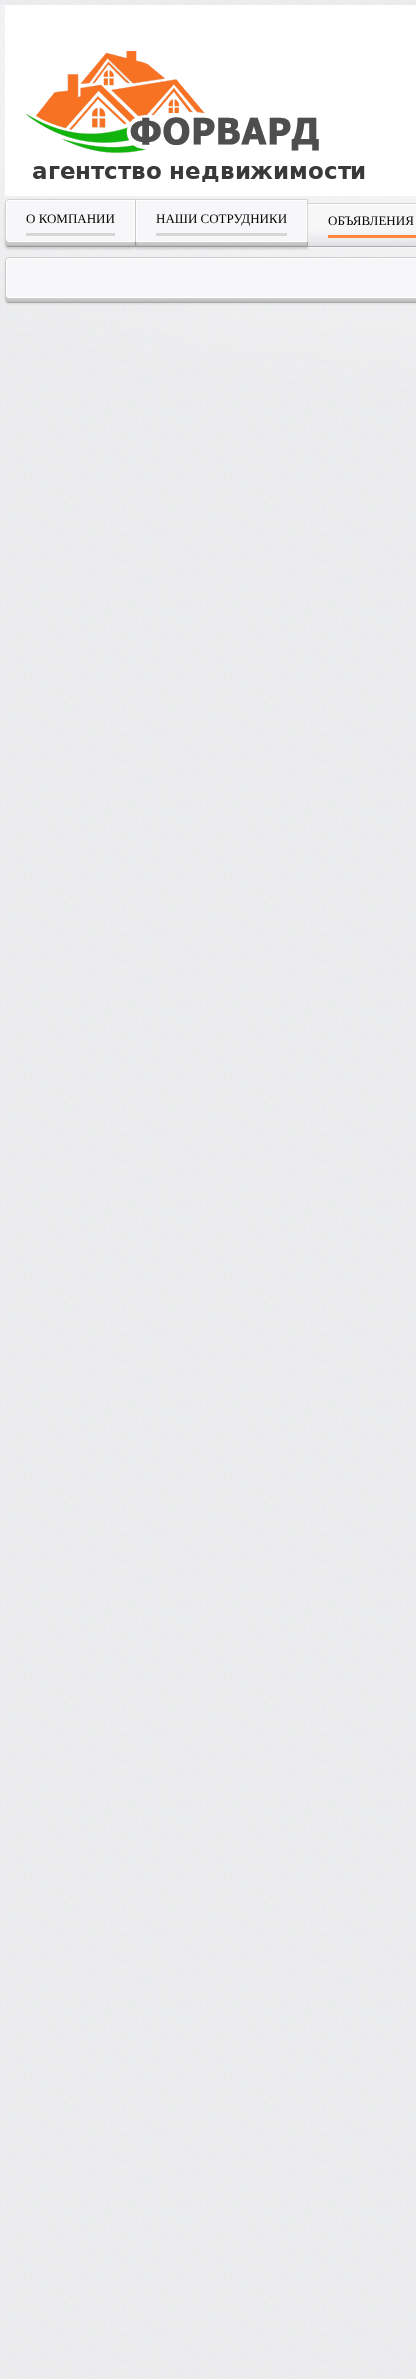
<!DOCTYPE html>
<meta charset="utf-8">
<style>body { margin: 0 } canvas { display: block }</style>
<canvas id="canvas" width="416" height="2379"></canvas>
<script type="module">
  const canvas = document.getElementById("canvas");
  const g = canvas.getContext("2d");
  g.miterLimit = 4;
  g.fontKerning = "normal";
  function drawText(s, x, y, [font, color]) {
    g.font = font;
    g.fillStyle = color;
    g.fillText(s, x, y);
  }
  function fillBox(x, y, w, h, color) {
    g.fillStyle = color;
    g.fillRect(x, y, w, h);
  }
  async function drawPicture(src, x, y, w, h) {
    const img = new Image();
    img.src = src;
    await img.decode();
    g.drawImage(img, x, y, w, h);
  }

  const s1 = ["13px Liberation Serif", "#000000"];

  fillBox(0, 0, 416, 2379, "#FFFFFF");
  await drawPicture("pic1.png", 0, 0, 416, 2379);
  await drawPicture("pic2.png", 5, 5, 411, 191);
  await drawPicture("pic3.png", 5, 238, 302, 8);
  fillBox(7, 246, 301, 1, "rgba(0, 0, 0, 0.25)");
  g.save();
  g.beginPath();
  g.moveTo(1, 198);
  g.lineTo(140, 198);
  g.lineTo(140, 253);
  g.lineTo(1, 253);
  g.closePath();
  g.moveTo(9, 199);
  g.lineTo(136, 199);
  g.lineTo(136, 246);
  g.lineTo(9, 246);
  g.bezierCurveTo(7, 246, 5, 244, 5, 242);
  g.lineTo(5, 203);
  g.bezierCurveTo(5, 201, 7, 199, 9, 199);
  g.closePath();
  g.clip("evenodd");
  g.fillStyle = "rgba(0, 0, 0, 0.15)";
  g.filter = "blur(1px)";
  g.beginPath();
  g.roundRect(5, 202, 131, 47, 4);
  g.fill();
  g.filter = "none";
  g.restore();
  await drawPicture("pic4.png", 135, 199, 1, 47);
  g.fillStyle = "#F7F7F9";
  g.beginPath();
  g.moveTo(9, 200);
  g.lineTo(135, 200);
  g.lineTo(135, 242);
  g.lineTo(9, 242);
  g.bezierCurveTo(7, 242, 6, 240, 6, 238);
  g.lineTo(6, 203);
  g.bezierCurveTo(6, 201, 7, 200, 9, 200);
  g.closePath();
  g.fill();
  g.beginPath();
  g.moveTo(9, 200.5);
  g.lineTo(134.5, 200.5);
  g.lineTo(134.5, 241.5);
  g.lineTo(9, 241.5);
  g.bezierCurveTo(7.5, 241.5, 6.5, 240, 6.5, 238);
  g.lineTo(6.5, 203);
  g.bezierCurveTo(6.5, 201.5, 7.5, 200.5, 9, 200.5);
  g.closePath();
  g.strokeStyle = "#FFFFFF";
  g.stroke();
  g.fillStyle = "#D3D3D3";
  g.beginPath();
  g.moveTo(9, 199);
  g.lineTo(135, 199);
  g.lineTo(135, 242);
  g.lineTo(9, 242);
  g.bezierCurveTo(7, 242, 5, 240, 5, 238);
  g.lineTo(5, 203);
  g.bezierCurveTo(5, 201, 7, 199, 9, 199);
  g.closePath();
  g.moveTo(9, 200);
  g.lineTo(135, 200);
  g.lineTo(135, 242);
  g.lineTo(9, 242);
  g.bezierCurveTo(7, 242, 6, 240, 6, 238);
  g.lineTo(6, 203);
  g.bezierCurveTo(6, 201, 7, 200, 9, 200);
  g.closePath();
  g.fill("evenodd");
  fillBox(26, 233, 89, 3, "#D5D5D5");
  drawText("О КОМПАНИИ", 26, 223, s1);
  g.save();
  g.beginPath();
  g.moveTo(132, 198);
  g.lineTo(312, 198);
  g.lineTo(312, 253);
  g.lineTo(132, 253);
  g.closePath();
  g.moveTo(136, 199);
  g.lineTo(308, 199);
  g.lineTo(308, 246);
  g.lineTo(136, 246);
  g.closePath();
  g.clip("evenodd");
  g.fillStyle = "rgba(0, 0, 0, 0.15)";
  g.filter = "blur(1px)";
  g.beginPath();
  g.rect(136, 202, 172, 47);
  g.fill();
  g.filter = "none";
  g.restore();
  await drawPicture("pic4.png", 307, 199, 1, 47);
  g.fillStyle = "#F7F7F9";
  g.beginPath();
  g.rect(136.5, 200.5, 170, 41);
  g.fill();
  g.stroke();
  fillBox(136, 199, 171, 1, "#D3D3D3");
  fillBox(156, 233, 131, 3, "#D5D5D5");
  drawText("НАШИ СОТРУДНИКИ", 156, 223, s1);
  fillBox(308, 247, 108, 1, "rgba(255, 255, 255, 0.4)");
  fillBox(308, 246, 108, 1, "#A9A9A9");
  fillBox(308, 243, 108, 3, "#E1E2E6");
  await drawPicture("pic5.png", 308, 204, 108, 39);
  fillBox(308, 203, 108, 1, "#D3D3D3");
  fillBox(328, 235, 88, 3, "#FF853B");
  drawText("ОБЪЯВЛЕНИЯ", 328, 225, s1);
  g.fillStyle = "rgba(0, 0, 0, 0.08)";
  g.filter = "blur(1px)";
  g.beginPath();
  g.roundRect(5, 258, 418, 46, 4);
  g.fill();
  g.filter = "none";
  await drawPicture("pic6.png", 6, 295, 410, 7);
  g.beginPath();
  g.moveTo(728.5, 301.5);
  g.bezierCurveTo(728, 302, 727, 302.5, 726, 302.5);
  g.lineTo(9, 302.5);
  g.bezierCurveTo(8, 302.5, 7, 302, 6.5, 301.5);
  g.strokeStyle = "rgba(0, 0, 0, 0.25)";
  g.stroke();
  g.beginPath();
  g.moveTo(6.5, 301.5);
  g.bezierCurveTo(6, 301, 5.5, 300, 5.5, 299);
  g.lineTo(5.5, 261);
  g.bezierCurveTo(5.5, 260, 6, 259, 6.5, 258.5);
  g.bezierCurveTo(7, 258, 8, 257.5, 9, 257.5);
  g.lineTo(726, 257.5);
  g.bezierCurveTo(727, 257.5, 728, 258, 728.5, 258.5);
  g.bezierCurveTo(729, 259, 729.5, 260, 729.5, 261);
  g.lineTo(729.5, 299);
  g.bezierCurveTo(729.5, 300, 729, 301, 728.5, 301.5);
  g.strokeStyle = "rgba(0, 0, 0, 0.1)";
  g.stroke();
  g.fillStyle = "#F7F7F9";
  g.beginPath();
  g.roundRect(6.5, 258.5, 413, 39, 2.5);
  g.fill();
  g.strokeStyle = "#FFFFFF";
  g.stroke();
</script>
